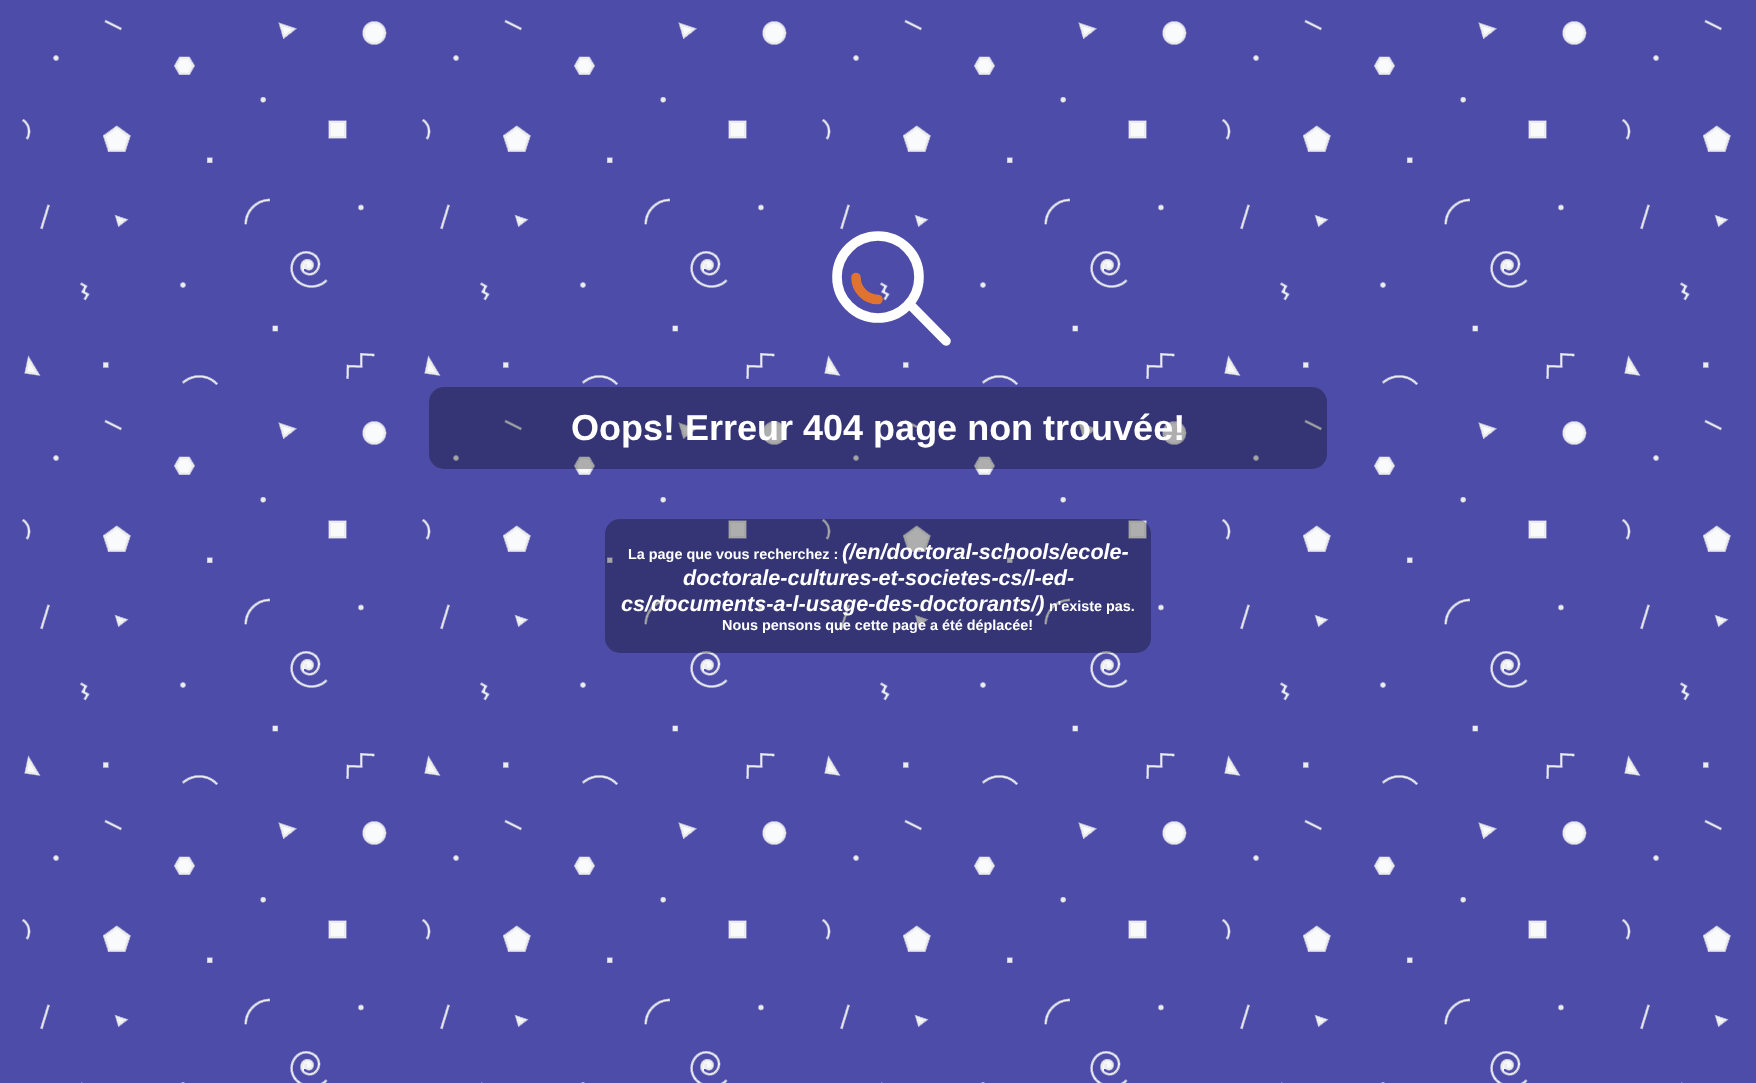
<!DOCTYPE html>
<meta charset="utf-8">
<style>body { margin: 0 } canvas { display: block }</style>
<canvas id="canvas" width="1756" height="1083"></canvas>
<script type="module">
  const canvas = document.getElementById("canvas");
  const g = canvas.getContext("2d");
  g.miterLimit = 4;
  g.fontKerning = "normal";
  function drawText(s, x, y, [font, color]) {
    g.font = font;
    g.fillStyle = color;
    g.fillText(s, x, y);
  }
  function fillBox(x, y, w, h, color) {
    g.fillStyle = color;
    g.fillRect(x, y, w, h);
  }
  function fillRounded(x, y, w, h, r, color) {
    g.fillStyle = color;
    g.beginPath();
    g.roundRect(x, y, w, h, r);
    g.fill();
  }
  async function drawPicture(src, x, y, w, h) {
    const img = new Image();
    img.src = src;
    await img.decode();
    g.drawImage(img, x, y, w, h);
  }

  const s1 = ["bold 36px Liberation Sans", "#FFFFFF"];
  const s2 = ["bold 14.4px Liberation Sans", "#FFFFFF"];
  const s3 = ["italic bold 21.6px Liberation Sans", "#FFFFFF"];

  fillBox(0, 0, 1756, 1083, "#4D4CA9");
  await drawPicture("pic1.png", 22, 19, 1709, 1064);
  g.beginPath();
  g.arc(878, 277, 41, 0, Math.PI * 2);
  g.strokeStyle = "#FFFFFF";
  g.lineWidth = 9.6;
  g.stroke();
  g.beginPath();
  g.moveTo(946, 341);
  g.lineTo(911, 305.5);
  g.lineCap = "round";
  g.stroke();
  g.beginPath();
  g.moveTo(856, 277.5);
  g.bezierCurveTo(856, 289.5, 866, 299.5, 878, 299.5);
  g.strokeStyle = "#E17331";
  g.stroke();
  fillRounded(429, 387, 898, 82, 15, "rgba(0, 0, 0, 0.3)");
  drawText("Oops! Erreur 404 page non trouvée!", 571, 440, s1);
  fillRounded(605, 519, 546, 134, 15, "rgba(0, 0, 0, 0.3)");
  drawText("La page que vous recherchez :", 628, 559, s2);
  drawText("(/en/doctoral-schools/ecole-", 842, 559, s3);
  drawText("doctorale-cultures-et-societes-cs/l-ed-", 683, 585, s3);
  drawText("cs/documents-a-l-usage-des-doctorants/)", 621, 611, s3);
  drawText("n'existe pas.", 1049, 611, s2);
  drawText("Nous pensons que cette page a été déplacée!", 722, 630, s2);
</script>
